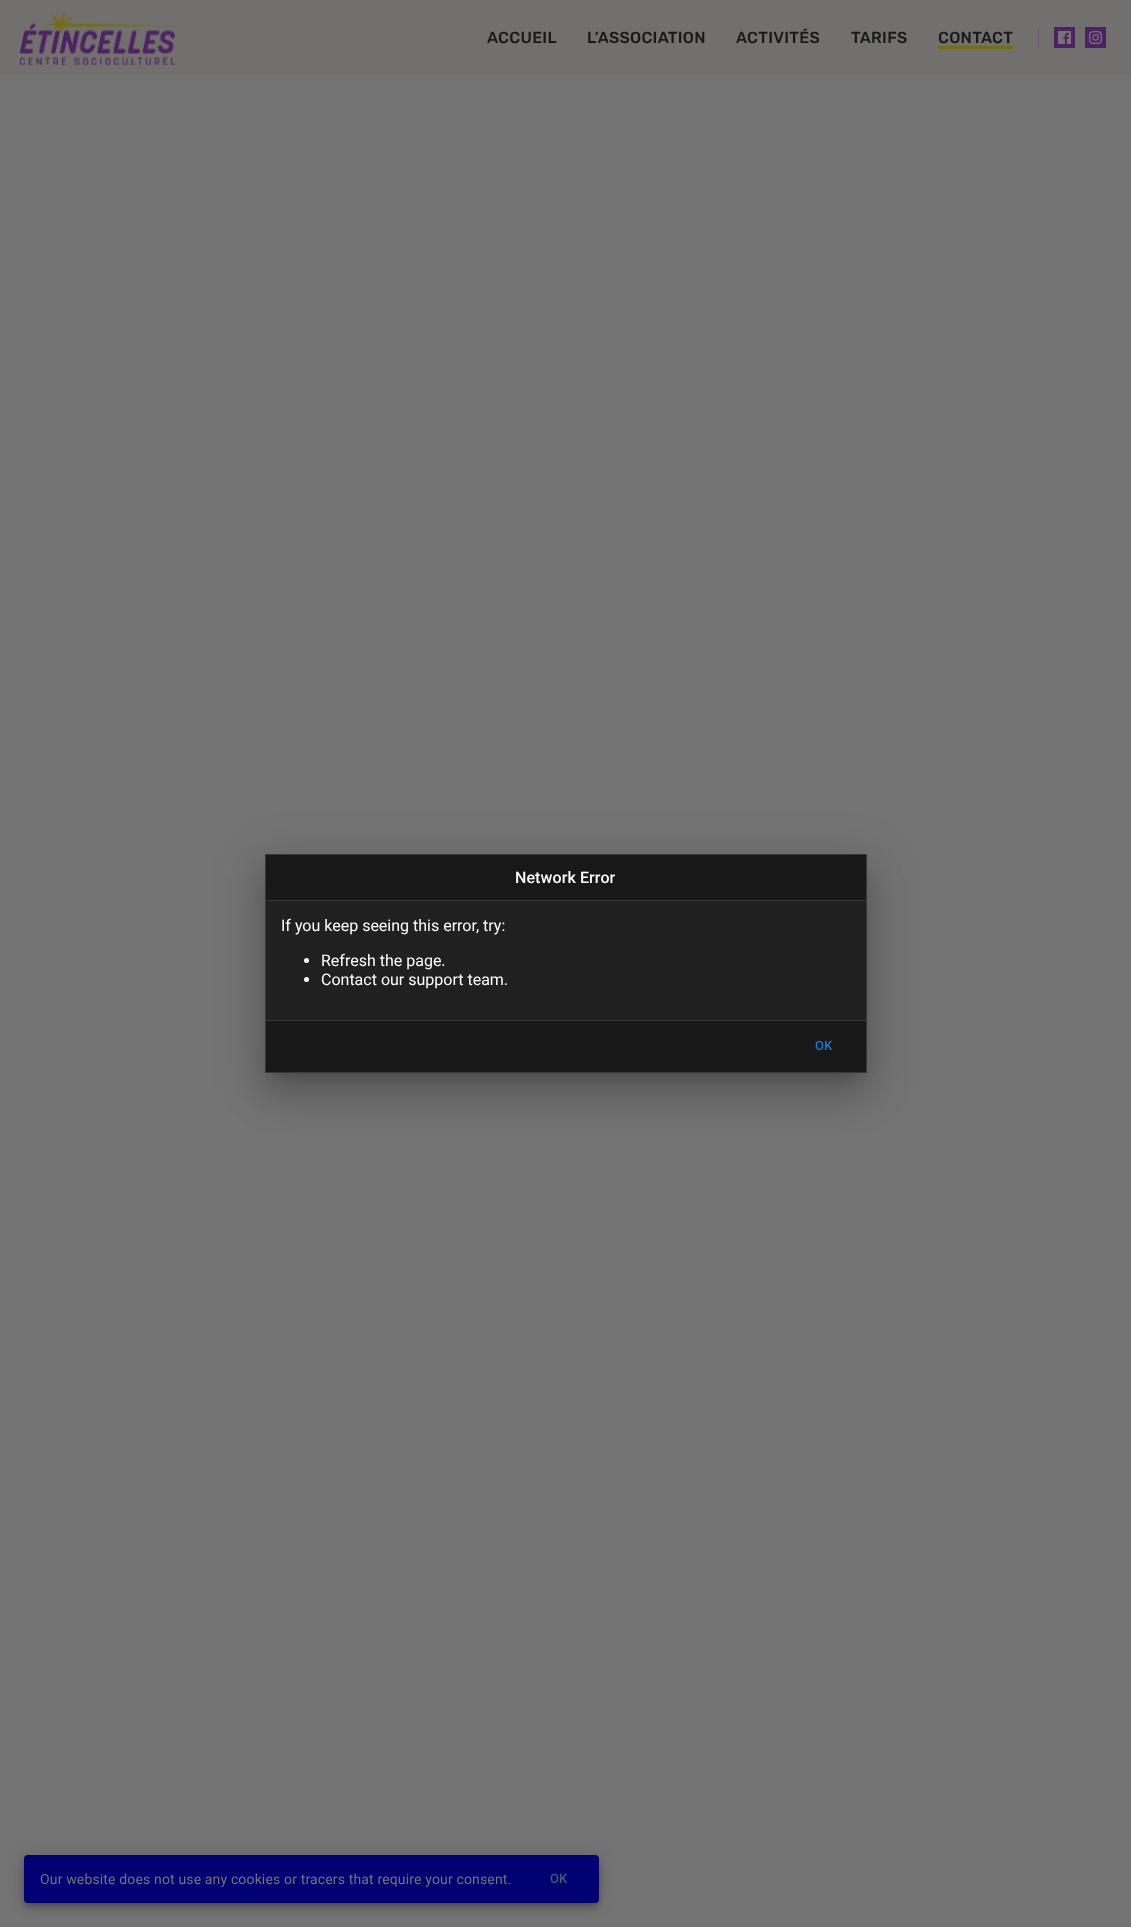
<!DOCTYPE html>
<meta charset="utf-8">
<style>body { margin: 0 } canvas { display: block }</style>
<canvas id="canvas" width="1131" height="1927"></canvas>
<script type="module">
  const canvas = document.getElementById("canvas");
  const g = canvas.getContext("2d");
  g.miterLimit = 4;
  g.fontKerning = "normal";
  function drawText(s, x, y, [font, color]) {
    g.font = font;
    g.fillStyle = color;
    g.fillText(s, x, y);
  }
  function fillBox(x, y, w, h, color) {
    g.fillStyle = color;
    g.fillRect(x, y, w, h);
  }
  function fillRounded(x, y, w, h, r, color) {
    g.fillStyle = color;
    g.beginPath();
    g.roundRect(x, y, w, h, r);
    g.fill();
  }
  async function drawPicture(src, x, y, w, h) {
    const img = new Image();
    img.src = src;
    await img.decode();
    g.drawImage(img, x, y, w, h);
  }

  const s1 = ["500 16px Rubik", "#191919"];
  const s2 = ["14px Roboto", "#747474"];
  const s3 = ["500 13px Roboto", "#425C71"];
  const s4 = ["500 16px Roboto", "#FFFFFF"];
  const s5 = ["16px Roboto", "#FFFFFF"];
  const s6 = ["500 13px Roboto", "#1976D2"];

  fillBox(0, 0, 1131, 1927, "#747474");
  fillBox(0, 0, 1131, 75, "#71706E");
  await drawPicture("pic1.png", 20, 10, 155, 55);
  g.letterSpacing = "0.25px";
  drawText("ACCUEIL", 487, 43, s1);
  drawText("L’ASSOCIATION", 587, 43, s1);
  drawText("ACTIVITÉS", 736, 43, s1);
  drawText("TARIFS", 851, 43, s1);
  drawText("CONTACT", 938, 43, s1);
  fillBox(938, 46, 75, 3, "#746D18");
  fillBox(1038, 27, 1, 21, "#66596C");
  fillBox(1054, 27, 21, 21, "#4D2261");
  await drawPicture("pic2.png", 1058, 31, 13, 13);
  fillBox(1085, 27, 21, 21, "#4D2261");
  await drawPicture("pic3.png", 1089, 31, 13, 13);
  g.fillStyle = "rgba(1, 1, 1, 0.12)";
  g.filter = "blur(9px)";
  g.beginPath();
  g.roundRect(24, 1856, 575, 48, 4);
  g.fill();
  g.filter = "none";
  g.fillStyle = "rgba(1, 1, 1, 0.14)";
  g.filter = "blur(5px)";
  g.beginPath();
  g.roundRect(24, 1861, 575, 48, 4);
  g.fill();
  g.filter = "none";
  g.fillStyle = "rgba(1, 1, 1, 0.2)";
  g.filter = "blur(2.5px)";
  g.beginPath();
  g.roundRect(25, 1859, 573, 46, 3);
  g.fill();
  g.filter = "none";
  fillRounded(24, 1855, 575, 48, 4, "#010174");
  g.letterSpacing = "0.15px";
  drawText("Our website does not use any cookies or tracers that require your consent.", 40, 1884, s2);
  g.letterSpacing = "0px";
  drawText("OK", 550, 1883, s3);
  g.fillStyle = "rgba(0, 0, 0, 0.12)";
  g.filter = "blur(23px)";
  g.beginPath();
  g.rect(258, 856, 616, 233);
  g.fill();
  g.filter = "none";
  g.fillStyle = "rgba(0, 0, 0, 0.14)";
  g.filter = "blur(19px)";
  g.beginPath();
  g.rect(263, 876, 606, 223);
  g.fill();
  g.filter = "none";
  g.fillStyle = "rgba(0, 0, 0, 0.2)";
  g.filter = "blur(7.5px)";
  g.beginPath();
  g.rect(273, 873, 586, 203);
  g.fill();
  g.filter = "none";
  fillBox(266, 901, 600, 119, "#202020");
  fillBox(266, 1021, 600, 51, "#181818");
  fillBox(266, 1020, 600, 1, "#383838");
  g.strokeStyle = "#383838";
  g.strokeRect(265.5, 854.5, 601, 218);
  fillBox(266, 855, 600, 45, "#181818");
  fillBox(266, 900, 600, 1, "#383838");
  g.letterSpacing = "0.1px";
  drawText("Network Error", 515, 883, s4);
  g.letterSpacing = "0px";
  drawText("If you keep seeing this error, try:", 281, 931, s5);
  g.beginPath();
  g.arc(306.5, 960.5, 2.5, 0, Math.PI * 2);
  g.fill();
  drawText("Refresh the page.", 321, 966, s5);
  g.beginPath();
  g.arc(306.5, 979.5, 2.5, 0, Math.PI * 2);
  g.fill();
  drawText("Contact our support team.", 321, 985, s5);
  drawText("OK", 815, 1050, s6);
</script>
